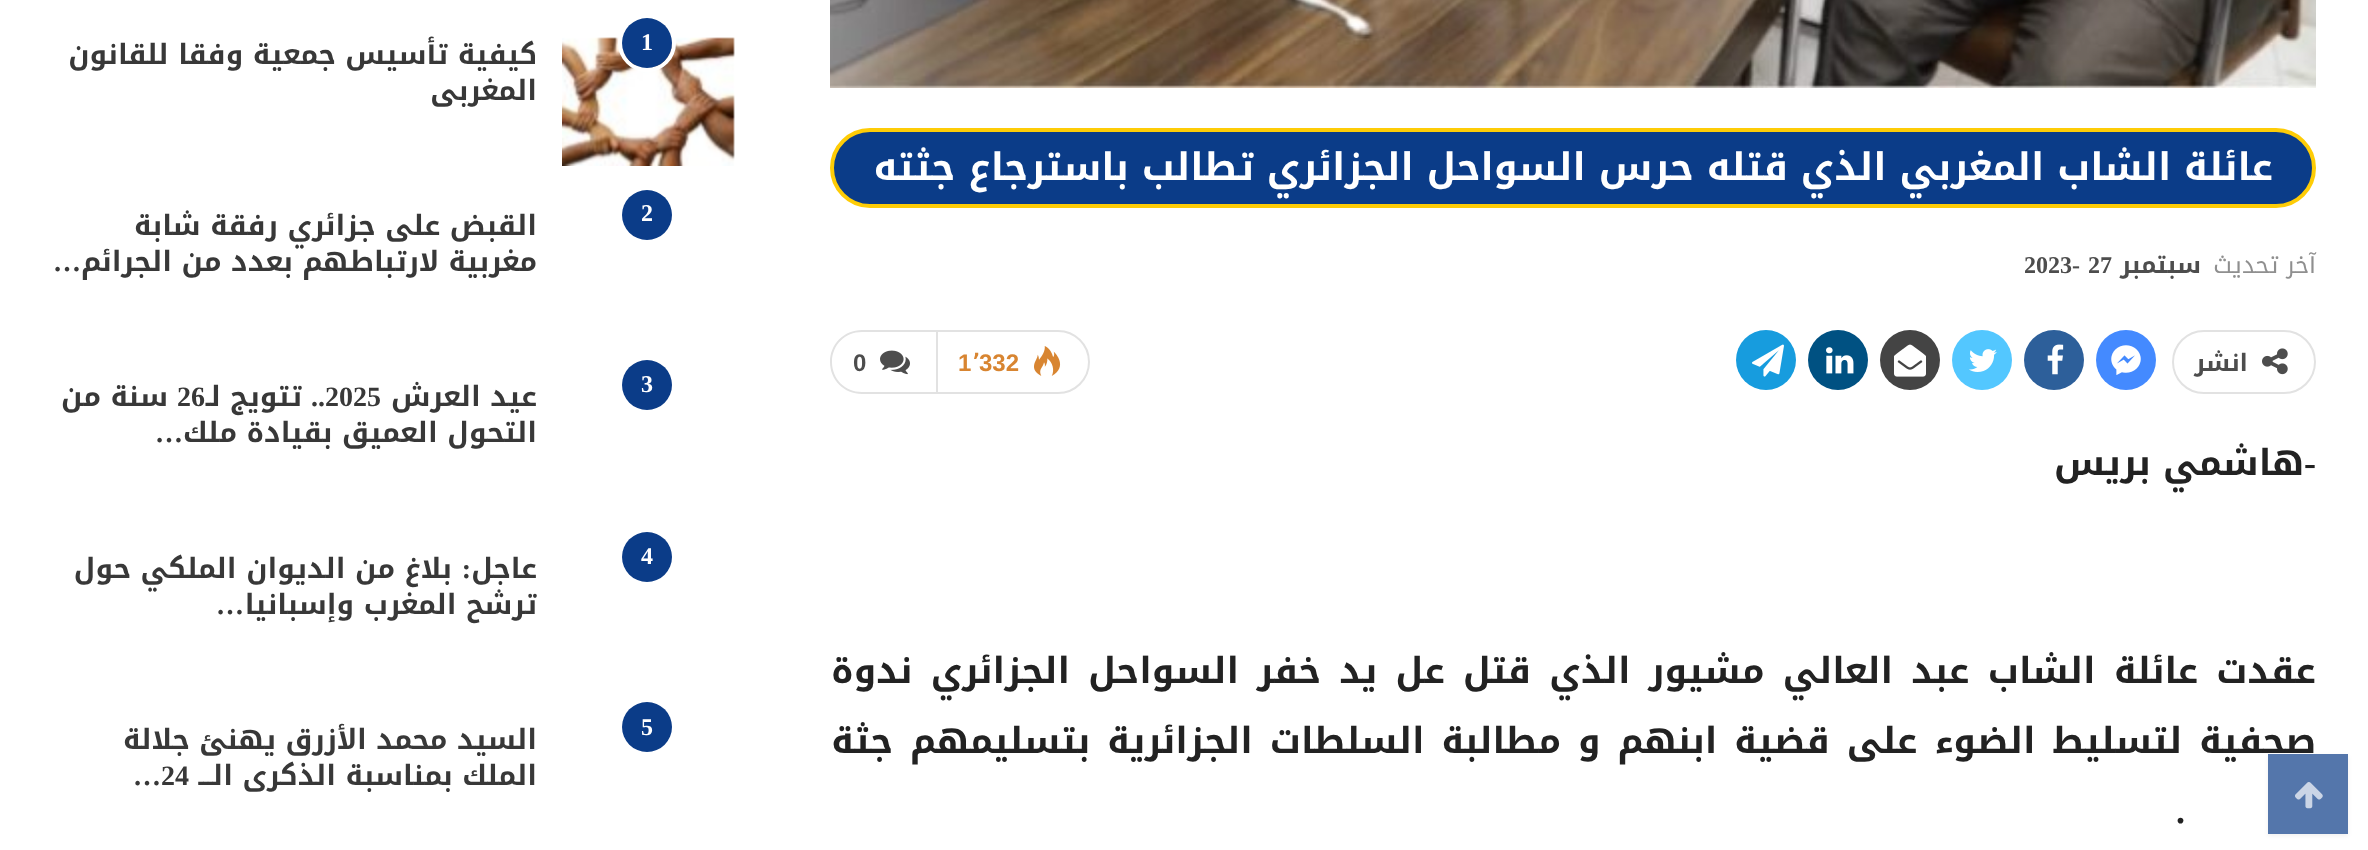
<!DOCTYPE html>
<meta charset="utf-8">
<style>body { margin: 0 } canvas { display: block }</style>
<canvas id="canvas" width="2368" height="850"></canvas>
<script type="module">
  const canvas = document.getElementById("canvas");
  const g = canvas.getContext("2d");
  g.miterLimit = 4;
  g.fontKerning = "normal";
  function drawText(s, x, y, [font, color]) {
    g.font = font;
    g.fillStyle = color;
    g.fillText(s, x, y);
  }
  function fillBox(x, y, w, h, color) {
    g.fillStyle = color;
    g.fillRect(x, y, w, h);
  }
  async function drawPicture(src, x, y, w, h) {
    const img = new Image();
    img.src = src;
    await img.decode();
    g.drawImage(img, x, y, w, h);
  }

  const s1 = ["bold 38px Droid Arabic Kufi", "#FFFFFF"];
  const s2 = ["24px Droid Arabic Kufi", "#8F8F8F"];
  const s3 = ["bold 24px Droid Arabic Kufi", "#4D4D4D"];
  const s4 = ["bold 24px Liberation Serif", "#4D4D4D"];
  const s5 = ["bold 24px Liberation Sans", "#D88531"];
  const s6 = ["bold 24px DejaVu Sans", "#D88531"];
  const s7 = ["bold 24px Liberation Sans", "#4D4D4D"];
  const s8 = ["bold 36px Liberation Serif", "#222222"];
  const s9 = ["bold 36px Droid Arabic Kufi", "#222222"];
  const s10 = ["bold 24px Liberation Serif", "#FFFFFF"];
  const s11 = ["bold 28px Droid Arabic Kufi", "#383838"];
  const s12 = ["bold 28px Liberation Serif", "#383838"];

  fillBox(0, 0, 2368, 850, "#FFFFFF");
  await drawPicture("pic1.png", 830, 0, 1486, 88);
  g.fillStyle = "#0B3C88";
  g.beginPath();
  g.roundRect(832, 130, 1482, 76, 38);
  g.fill();
  g.strokeStyle = "#FECC06";
  g.lineWidth = 4;
  g.stroke();
  g.direction = "rtl";
  drawText("عائلة الشاب المغربي الذي قتله حرس السواحل الجزائري", 2273, 180, s1);
  drawText("تطالب باسترجاع جثته", 1254, 180, s1);
  drawText("آخر تحديث", 2316, 273, s2);
  drawText("سبتمبر", 2201, 273, s3);
  g.direction = "ltr";
  drawText("27", 2088, 273, s4);
  drawText("2023-", 2024, 273, s4);
  g.beginPath();
  g.roundRect(2173, 331, 142, 62, 31);
  g.strokeStyle = "#E2E2E2";
  g.lineWidth = 2;
  g.stroke();
  await drawPicture("pic2.png", 2262, 348, 26, 27);
  g.direction = "rtl";
  drawText("انشر", 2248, 371, s3);
  g.fillStyle = "#448AFF";
  g.beginPath();
  g.arc(2126, 360, 30, 0, Math.PI * 2);
  g.fill();
  await drawPicture("pic3.png", 2111, 345, 30, 30);
  g.fillStyle = "#2D5F9A";
  g.beginPath();
  g.arc(2054, 360, 30, 0, Math.PI * 2);
  g.fill();
  await drawPicture("pic4.png", 2047, 344, 17, 31);
  g.fillStyle = "#53C7FF";
  g.beginPath();
  g.arc(1982, 360, 30, 0, Math.PI * 2);
  g.fill();
  await drawPicture("pic5.png", 1969, 349, 28, 23);
  g.fillStyle = "#444444";
  g.beginPath();
  g.arc(1910, 360, 30, 0, Math.PI * 2);
  g.fill();
  await drawPicture("pic6.png", 1894, 344, 32, 33);
  g.fillStyle = "#005182";
  g.beginPath();
  g.arc(1838, 360, 30, 0, Math.PI * 2);
  g.fill();
  await drawPicture("pic7.png", 1826, 347, 28, 27);
  g.fillStyle = "#179CDE";
  g.beginPath();
  g.arc(1766, 360, 30, 0, Math.PI * 2);
  g.fill();
  await drawPicture("pic8.png", 1752, 344, 32, 33);
  g.beginPath();
  g.roundRect(937, 331, 152, 62, [0, 31, 31, 0]);
  g.stroke();
  await drawPicture("pic9.png", 1034, 346, 27, 30);
  g.direction = "ltr";
  drawText("332", 979, 371, s5);
  drawText("٬", 972, 371, s6);
  drawText("1", 958, 371, s5);
  g.fillStyle = "#E2E2E2";
  g.beginPath();
  g.moveTo(862, 330);
  g.lineTo(936, 330);
  g.lineTo(936, 394);
  g.lineTo(862, 394);
  g.bezierCurveTo(844, 394, 830, 380, 830, 362);
  g.bezierCurveTo(830, 344, 844, 330, 862, 330);
  g.closePath();
  g.moveTo(862, 332);
  g.lineTo(936, 332);
  g.lineTo(936, 392);
  g.lineTo(862, 392);
  g.bezierCurveTo(845, 392, 832, 379, 832, 362);
  g.bezierCurveTo(832, 345, 845, 332, 862, 332);
  g.closePath();
  g.fill("evenodd");
  await drawPicture("pic10.png", 880, 350, 30, 25);
  drawText("0", 853, 371, s7);
  g.direction = "rtl";
  drawText("-", 2316, 475, s8);
  drawText("هاشمي بريس", 2304, 475, s9);
  g.wordSpacing = "6px";
  drawText("عقدت عائلة الشاب عبد العالي مشيور الذي قتل عل يد خفر السواحل الجزائري ندوة", 2316, 683, s9);
  g.wordSpacing = "4.75px";
  drawText("صحفية لتسليط الضوء على قضية ابنهم و مطالبة السلطات الجزائرية بتسليمهم جثة", 2316, 753, s9);
  g.wordSpacing = "0px";
  drawText(".", 2185, 823, s8);
  await drawPicture("pic11.png", 562, 37, 173, 129);
  g.beginPath();
  g.arc(647, 43, 27, 0, Math.PI * 2);
  g.strokeStyle = "#FFFFFF";
  g.lineWidth = 4;
  g.stroke();
  g.fillStyle = "#0B3C88";
  g.beginPath();
  g.arc(647, 43, 25, 0, Math.PI * 2);
  g.fill();
  g.direction = "ltr";
  drawText("1", 641, 50, s10);
  g.direction = "rtl";
  drawText("كيفية تأسيس جمعية وفقا للقانون", 537, 64, s11);
  drawText("المغربى", 537, 100, s11);
  g.fillStyle = "#0B3C88";
  g.beginPath();
  g.arc(647, 215, 25, 0, Math.PI * 2);
  g.fill();
  g.direction = "ltr";
  drawText("2", 641, 221, s10);
  g.direction = "rtl";
  drawText("القبض على جزائري رفقة شابة", 537, 235, s11);
  drawText("مغربية لارتباطهم بعدد من الجرائم", 537, 271, s11);
  drawText("…", 81, 271, s12);
  g.fillStyle = "#0B3C88";
  g.beginPath();
  g.arc(647, 385, 25, 0, Math.PI * 2);
  g.fill();
  g.direction = "ltr";
  drawText("3", 641, 392, s10);
  g.direction = "rtl";
  drawText("عيد العرش", 537, 406, s11);
  g.direction = "ltr";
  drawText("2025", 325, 406, s12);
  g.direction = "rtl";
  drawText("..", 325, 406, s12);
  drawText("تتويج لـ", 302, 406, s11);
  g.direction = "ltr";
  drawText("26", 177, 406, s12);
  g.direction = "rtl";
  drawText("سنة من", 168, 406, s11);
  drawText("التحول العميق بقيادة ملك", 537, 442, s11);
  drawText("…", 183, 442, s12);
  g.fillStyle = "#0B3C88";
  g.beginPath();
  g.arc(647, 557, 25, 0, Math.PI * 2);
  g.fill();
  g.direction = "ltr";
  drawText("4", 641, 564, s10);
  g.direction = "rtl";
  drawText("عاجل", 537, 578, s11);
  drawText(":", 471, 578, s12);
  drawText("بلاغ من الديوان الملكي حول", 452, 578, s11);
  drawText("ترشح المغرب وإسبانيا", 537, 614, s11);
  drawText("…", 244, 614, s12);
  g.fillStyle = "#0B3C88";
  g.beginPath();
  g.arc(647, 727, 25, 0, Math.PI * 2);
  g.fill();
  g.direction = "ltr";
  drawText("5", 641, 735, s10);
  g.direction = "rtl";
  drawText("السيد محمد الأزرق يهنئ جلالة", 537, 749, s11);
  drawText("الملك بمناسبة الذكرى الـــ", 537, 785, s11);
  g.direction = "ltr";
  drawText("…24", 133, 785, s12);
  g.save();
  g.beginPath();
  g.moveTo(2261, 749);
  g.lineTo(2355, 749);
  g.lineTo(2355, 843);
  g.lineTo(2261, 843);
  g.closePath();
  g.moveTo(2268, 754);
  g.lineTo(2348, 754);
  g.lineTo(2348, 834);
  g.lineTo(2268, 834);
  g.closePath();
  g.clip("evenodd");
  g.fillStyle = "rgba(0, 0, 0, 0.06)";
  g.filter = "blur(2px)";
  g.beginPath();
  g.rect(2268, 756, 80, 80);
  g.fill();
  g.filter = "none";
  g.restore();
  fillBox(2268, 754, 80, 80, "rgba(11, 60, 136, 0.7)");
  await drawPicture("pic12.png", 2295, 782, 28, 27);
</script>
